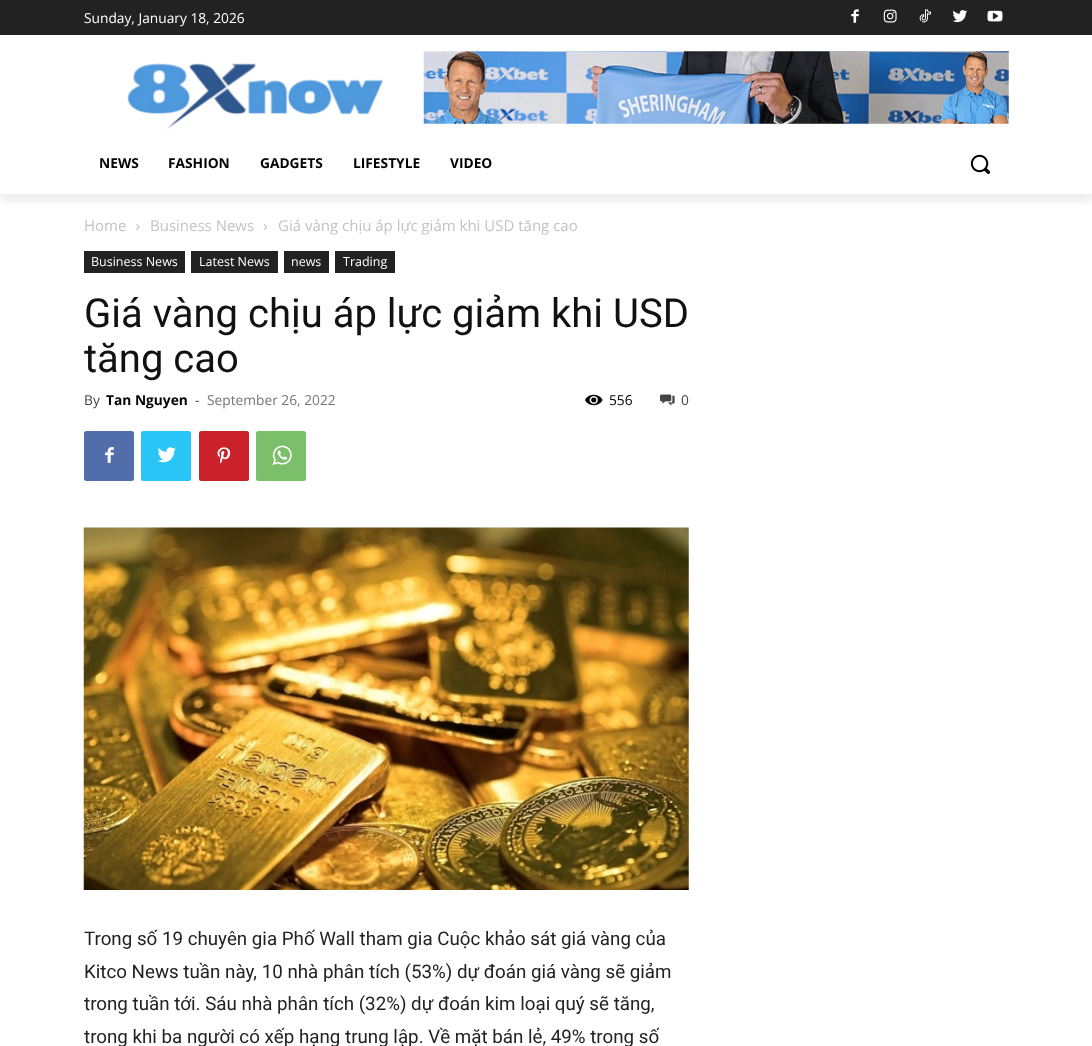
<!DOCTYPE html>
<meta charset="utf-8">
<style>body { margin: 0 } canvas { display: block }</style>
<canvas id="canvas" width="1092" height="1046"></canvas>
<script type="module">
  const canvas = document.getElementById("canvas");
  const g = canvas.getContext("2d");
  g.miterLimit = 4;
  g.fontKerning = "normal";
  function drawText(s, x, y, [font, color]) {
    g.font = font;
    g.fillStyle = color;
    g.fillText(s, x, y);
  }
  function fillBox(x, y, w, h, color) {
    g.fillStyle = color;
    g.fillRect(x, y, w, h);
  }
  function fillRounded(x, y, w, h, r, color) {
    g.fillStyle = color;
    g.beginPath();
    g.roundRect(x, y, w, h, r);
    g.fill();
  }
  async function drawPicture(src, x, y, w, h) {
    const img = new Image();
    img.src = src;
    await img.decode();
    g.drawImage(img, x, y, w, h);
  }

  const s1 = ["13.75px Open Sans", "#FFFFFF"];
  const s2 = ["bold 13.75px Open Sans", "#000000"];
  const s3 = ["15px Open Sans", "#C3C3C3"];
  const s4 = ["12.5px Open Sans", "#FFFFFF"];
  const s5 = ["40px Roboto", "#111111"];
  const s6 = ["13.75px Open Sans", "#444444"];
  const s7 = ["13.75px Open Sans", "#767676"];
  const s8 = ["13.75px Open Sans", "#000000"];
  const s9 = ["18.75px Roboto", "#222222"];

  fillBox(0, 0, 1092, 1046, "#FFFFFF");
  fillBox(0, 0, 1092, 35, "#222222");
  await drawPicture("pic1.png", 851, 9, 8, 14);
  await drawPicture("pic2.png", 883, 9, 14, 14);
  await drawPicture("pic3.png", 919, 9, 12, 14);
  await drawPicture("pic4.png", 952, 10, 16, 13);
  await drawPicture("pic5.png", 987, 10, 16, 12);
  await drawPicture("pic6.png", 127, 63, 257, 66);
  await drawPicture("pic7.png", 423, 51, 586, 73);
  g.save();
  g.beginPath();
  g.rect(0, 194, 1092, 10);
  g.clip();
  g.fillStyle = "rgba(0, 0, 0, 0.08)";
  g.filter = "blur(5px)";
  g.beginPath();
  g.rect(0, 8, 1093, 193);
  g.fill();
  g.filter = "none";
  g.restore();
  drawText("Sunday, January 18, 2026", 84, 23, s1);
  drawText("NEWS", 99, 168, s2);
  drawText("FASHION", 168, 168, s2);
  drawText("GADGETS", 260, 168, s2);
  drawText("LIFESTYLE", 353, 168, s2);
  drawText("VIDEO", 450, 168, s2);
  await drawPicture("pic8.png", 970, 154, 20, 20);
  drawText("Home", 84, 231, s3);
  await drawPicture("pic9.png", 136, 224, 4, 6);
  drawText("Business News", 150, 231, s3);
  await drawPicture("pic10.png", 263, 224, 4, 6);
  drawText("Giá vàng chịu áp lực giảm khi USD tăng cao", 278, 231, s3);
  fillBox(84, 251, 101, 22, "#222222");
  drawText("Business News", 91, 266, s4);
  fillBox(191, 251, 87, 22, "#222222");
  drawText("Latest News", 199, 266, s4);
  fillBox(284, 251, 45, 22, "#222222");
  drawText("news", 291, 266, s4);
  fillBox(335, 251, 60, 22, "#222222");
  drawText("Trading", 343, 266, s4);
  drawText("Giá vàng chịu áp lực giảm khi USD", 84, 327, s5);
  drawText("tăng cao", 84, 372, s5);
  drawText("By", 84, 405, s6);
  drawText("Tan Nguyen", 106, 405, s2);
  drawText("-", 195, 405, s6);
  drawText("September 26, 2022", 207, 405, s7);
  await drawPicture("pic11.png", 585, 394, 18, 12);
  drawText("556", 609, 405, s8);
  await drawPicture("pic12.png", 660, 394, 15, 12);
  drawText("0", 681, 405, s6);
  fillRounded(84, 431, 50, 50, 2.5, "#516EAB");
  await drawPicture("pic13.png", 105, 447, 9, 16);
  fillRounded(141, 431, 50, 50, 2.5, "#29C5F6");
  await drawPicture("pic14.png", 157, 447, 19, 16);
  fillRounded(199, 431, 50, 50, 2.5, "#CA212A");
  await drawPicture("pic15.png", 217, 447, 14, 17);
  fillRounded(256, 431, 50, 50, 2.5, "#7BBF6A");
  await drawPicture("pic16.png", 272, 445, 20, 20);
  await drawPicture("pic17.png", 83, 527, 606, 363);
  drawText("Trong số 19 chuyên gia Phố Wall tham gia Cuộc khảo sát giá vàng của", 84, 945, s9);
  drawText("Kitco News tuần này, 10 nhà phân tích (53%) dự đoán giá vàng sẽ giảm", 84, 978, s9);
  drawText("trong tuần tới. Sáu nhà phân tích (32%) dự đoán kim loại quý sẽ tăng,", 84, 1010, s9);
  drawText("trong khi ba người có xếp hạng trung lập. Về mặt bán lẻ, 49% trong số", 84, 1043, s9);
</script>
